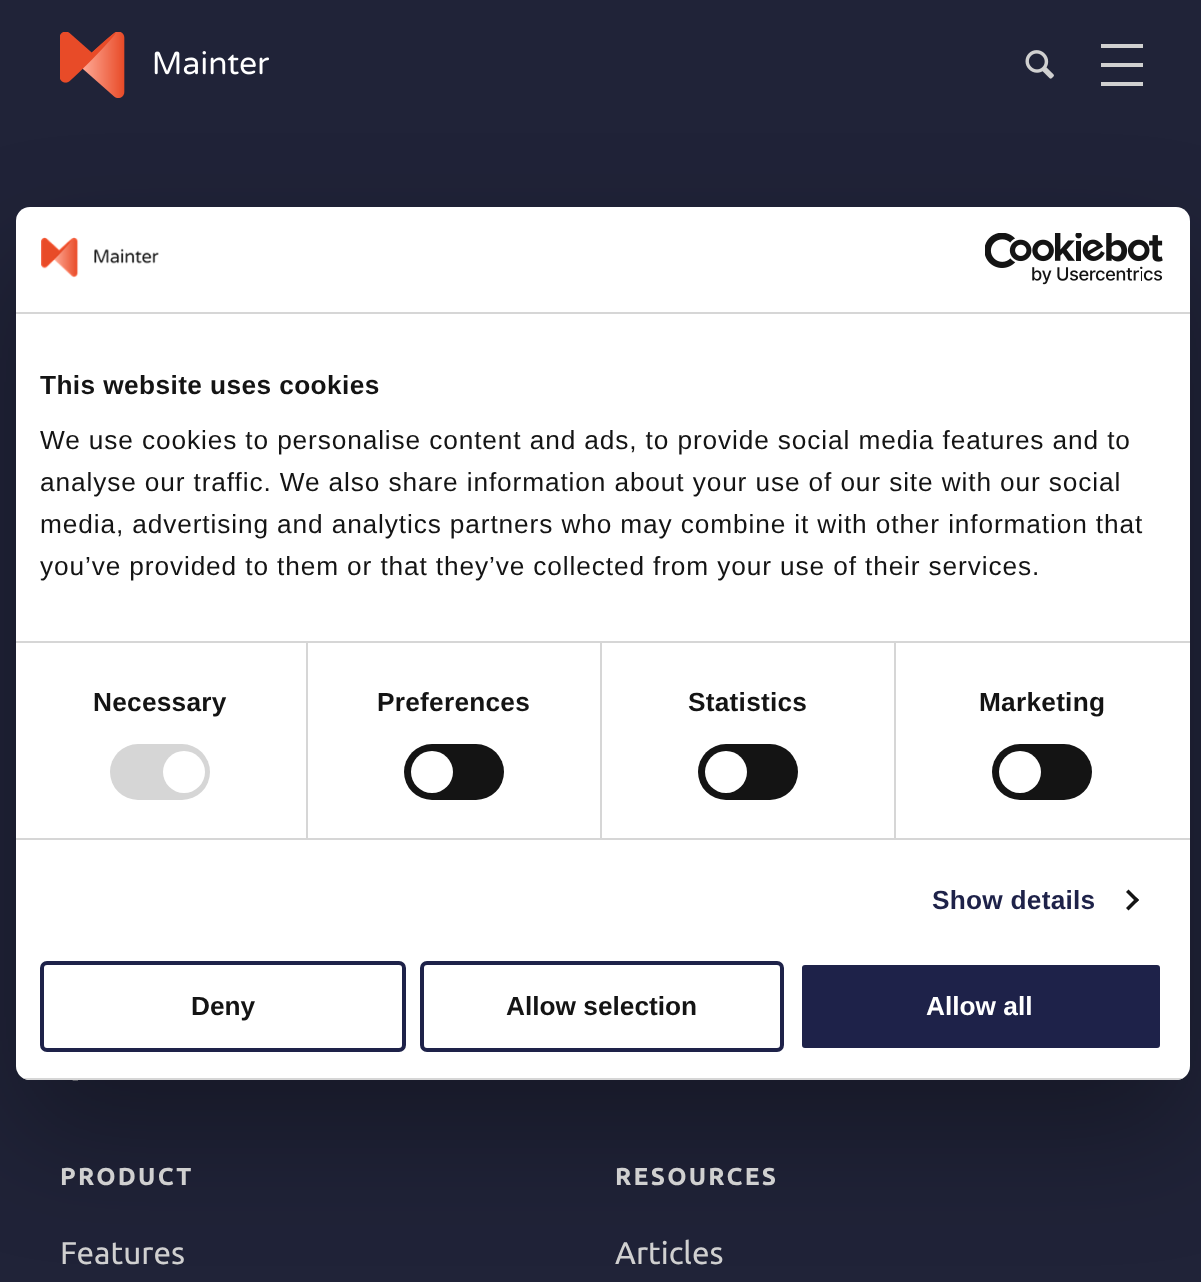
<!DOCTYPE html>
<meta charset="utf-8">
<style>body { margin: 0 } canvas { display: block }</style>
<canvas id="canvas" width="1201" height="1282"></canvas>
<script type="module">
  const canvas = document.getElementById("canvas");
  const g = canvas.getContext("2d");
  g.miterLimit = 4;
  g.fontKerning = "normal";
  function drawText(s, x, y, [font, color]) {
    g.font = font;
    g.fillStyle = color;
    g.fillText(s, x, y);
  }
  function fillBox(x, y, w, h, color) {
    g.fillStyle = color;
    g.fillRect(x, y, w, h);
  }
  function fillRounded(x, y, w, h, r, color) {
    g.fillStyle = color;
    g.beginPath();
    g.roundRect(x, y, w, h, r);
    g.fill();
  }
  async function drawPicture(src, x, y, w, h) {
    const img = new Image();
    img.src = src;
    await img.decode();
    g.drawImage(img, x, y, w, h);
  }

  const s1 = ["bold 26.25px Liberation Sans", "#141414"];
  const s2 = ["26.25px Liberation Sans", "#141414"];
  const s3 = ["bold 26.25px Liberation Sans", "#1E2249"];
  const s4 = ["bold 26.25px Liberation Sans", "#FFFFFF"];
  const s5 = ["bold 24.5px Ubuntu", "#D0D0D0"];
  const s6 = ["31.5px Ubuntu", "#D0D0D0"];

  fillBox(0, 0, 1201, 1282, "#202338");
  await drawPicture("pic1.png", 60, 32, 209, 66);
  await drawPicture("pic2.png", 1025, 50, 29, 29);
  fillBox(1101, 63, 42, 4, "#D0D0D0");
  fillBox(1101, 44, 42, 4, "#D0D0D0");
  fillBox(1101, 82, 42, 4, "#D0D0D0");
  await drawPicture("pic5.png", 72, 1080, 6, 1);
  g.fillStyle = "rgba(0, 0, 0, 0.3)";
  g.filter = "blur(59.5px)";
  g.beginPath();
  g.roundRect(16, 263, 1174, 873, 14);
  g.fill();
  g.filter = "none";
  fillRounded(16, 207, 1174, 873, 14, "#FFFFFF");
  fillBox(16, 312, 1174, 2, "#D6D6D6");
  await drawPicture("pic3.png", 41, 237, 118, 41);
  await drawPicture("pic4.png", 985, 233, 178, 52);
  fillBox(306, 642, 2, 196, "#D6D6D6");
  fillBox(600, 642, 2, 196, "#D6D6D6");
  fillBox(894, 642, 2, 196, "#D6D6D6");
  fillBox(16, 641, 1174, 2, "#D6D6D6");
  g.letterSpacing = "0.4px";
  drawText("This website uses cookies", 40, 394, s1);
  g.letterSpacing = "0.88px";
  drawText("We use cookies to personalise content and ads, to provide social media features and to", 40, 449, s2);
  drawText("analyse our traffic. We also share information about your use of our site with our social", 40, 491, s2);
  drawText("media, advertising and analytics partners who may combine it with other information that", 40, 533, s2);
  drawText("you’ve provided to them or that they’ve collected from your use of their services.", 40, 575, s2);
  fillBox(16, 838, 1174, 2, "#D6D6D6");
  g.letterSpacing = "0.25px";
  drawText("Necessary", 93, 711, s1);
  fillRounded(110, 744, 100, 56, 28, "#D6D6D6");
  g.fillStyle = "#FFFFFF";
  g.beginPath();
  g.arc(184, 772, 21, 0, Math.PI * 2);
  g.fill();
  drawText("Preferences", 377, 711, s1);
  fillRounded(404, 744, 100, 56, 28, "#141414");
  g.fillStyle = "#FFFFFF";
  g.beginPath();
  g.arc(432, 772, 21, 0, Math.PI * 2);
  g.fill();
  drawText("Statistics", 688, 711, s1);
  fillRounded(698, 744, 100, 56, 28, "#141414");
  g.fillStyle = "#FFFFFF";
  g.beginPath();
  g.arc(726, 772, 21, 0, Math.PI * 2);
  g.fill();
  drawText("Marketing", 979, 711, s1);
  fillRounded(992, 744, 100, 56, 28, "#141414");
  g.fillStyle = "#FFFFFF";
  g.beginPath();
  g.arc(1020, 772, 21, 0, Math.PI * 2);
  g.fill();
  drawText("Show details", 932, 909, s3);
  g.fillStyle = "#141414";
  g.beginPath();
  g.moveTo(1128.5, 889.5);
  g.lineTo(1139, 900);
  g.lineTo(1136.5, 902.5);
  g.lineTo(1126, 892);
  g.closePath();
  g.fill();
  g.beginPath();
  g.moveTo(1136.5, 897.5);
  g.lineTo(1139, 900);
  g.lineTo(1128.5, 910.5);
  g.lineTo(1126, 908);
  g.closePath();
  g.fill();
  g.save();
  g.beginPath();
  g.roundRect(16, 207, 1174, 873, 14);
  g.clip();
  fillBox(16, 1078, 1174, 2, "#D6D6D6");
  g.restore();
  g.beginPath();
  g.roundRect(42, 963, 362, 87, 5);
  g.strokeStyle = "#1E2249";
  g.lineWidth = 4;
  g.stroke();
  g.letterSpacing = "0px";
  drawText("Deny", 191, 1015, s1);
  g.beginPath();
  g.roundRect(422, 963, 360, 87, 5);
  g.stroke();
  drawText("Allow selection", 506, 1015, s1);
  g.fillStyle = "#1E2249";
  g.beginPath();
  g.roundRect(800, 963, 362, 87, 5);
  g.fill();
  g.strokeStyle = "#FFFFFF";
  g.stroke();
  drawText("Allow all", 926, 1015, s4);
  g.letterSpacing = "2.25px";
  drawText("PRODUCT", 60, 1185, s5);
  g.letterSpacing = "0px";
  drawText("Features", 60, 1264, s6);
  g.letterSpacing = "2.25px";
  drawText("RESOURCES", 615, 1185, s5);
  g.letterSpacing = "0px";
  drawText("Articles", 615, 1264, s6);
</script>
